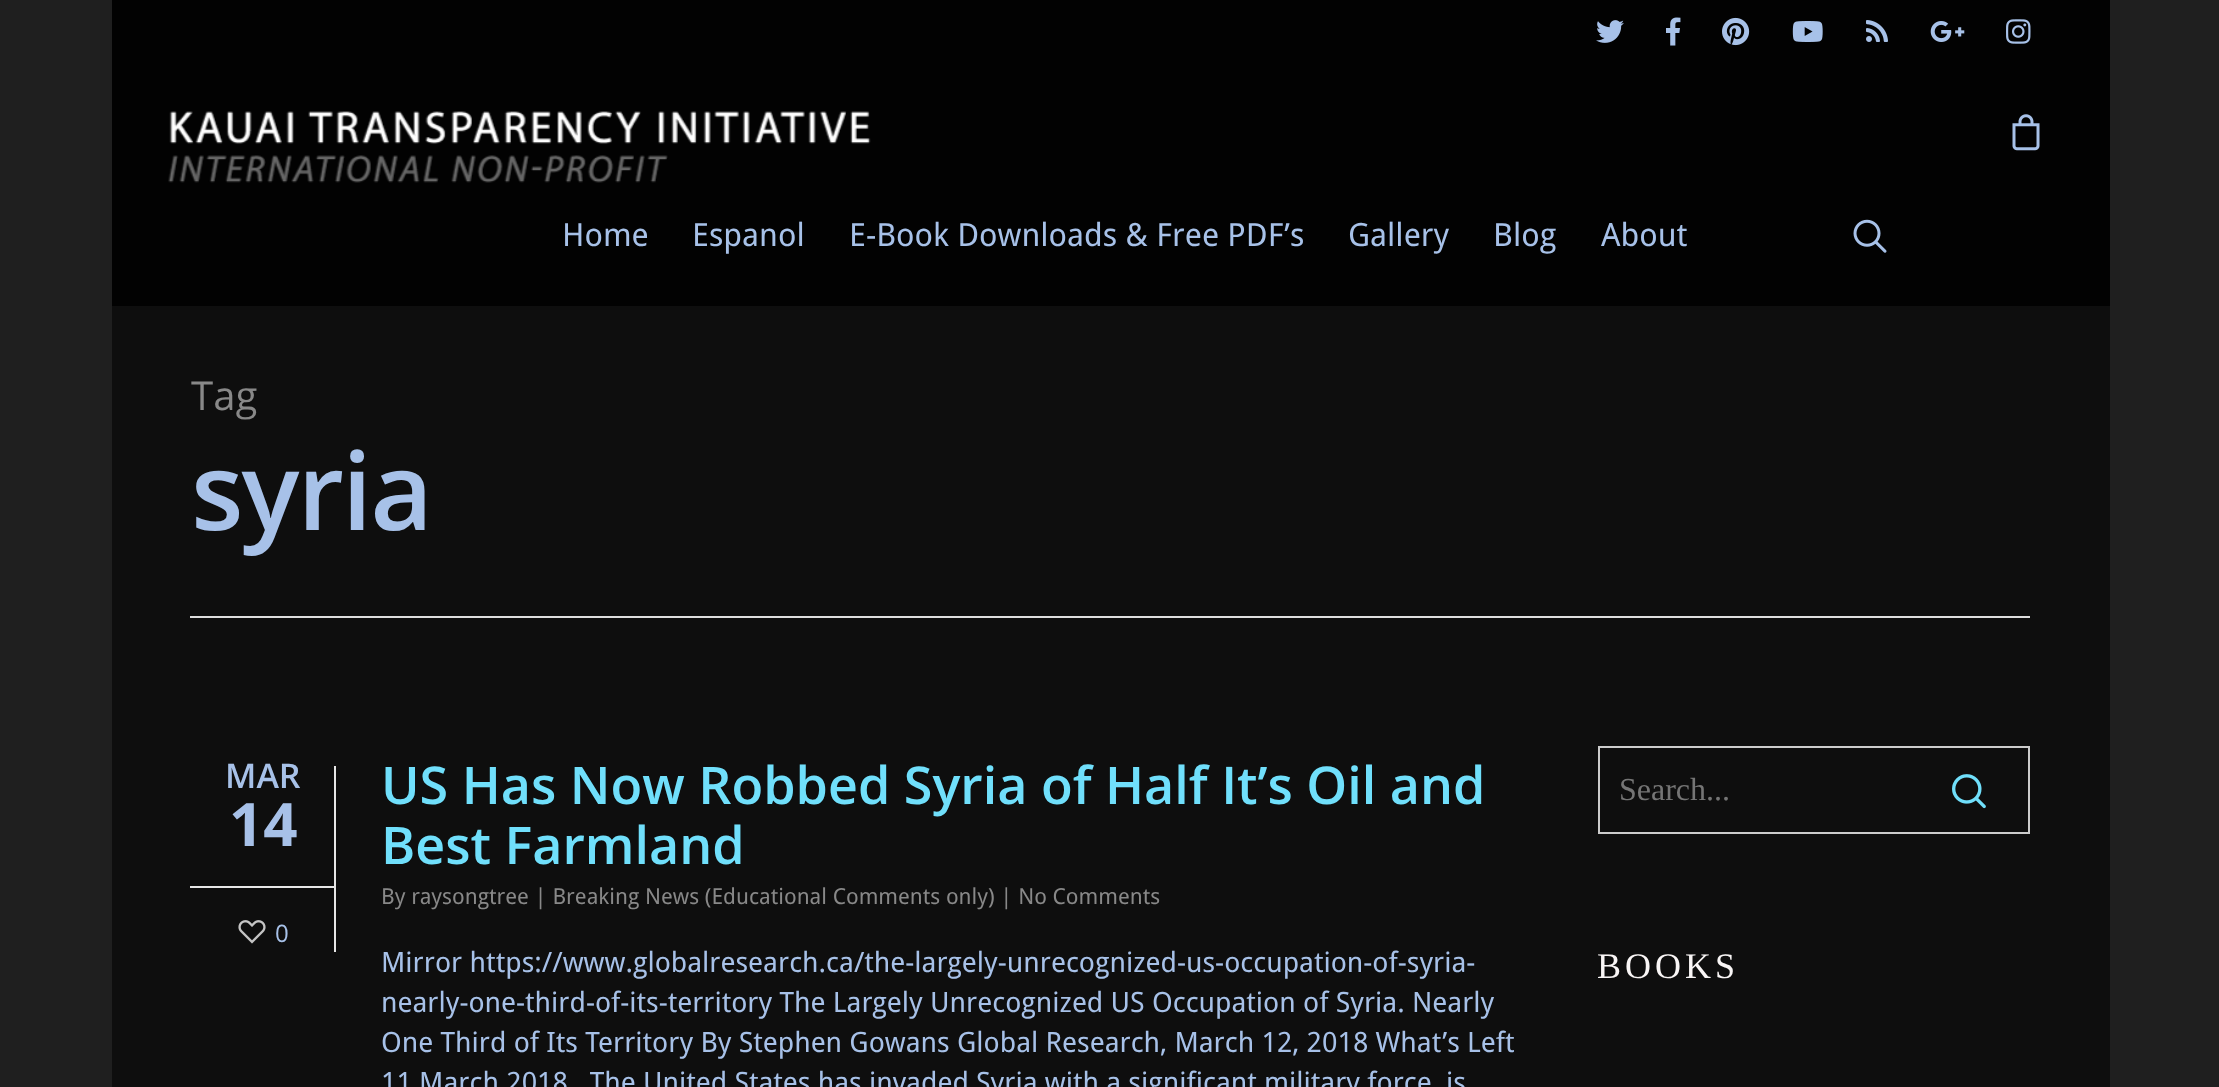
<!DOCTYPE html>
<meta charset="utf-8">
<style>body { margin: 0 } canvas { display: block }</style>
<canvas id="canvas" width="2219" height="1087"></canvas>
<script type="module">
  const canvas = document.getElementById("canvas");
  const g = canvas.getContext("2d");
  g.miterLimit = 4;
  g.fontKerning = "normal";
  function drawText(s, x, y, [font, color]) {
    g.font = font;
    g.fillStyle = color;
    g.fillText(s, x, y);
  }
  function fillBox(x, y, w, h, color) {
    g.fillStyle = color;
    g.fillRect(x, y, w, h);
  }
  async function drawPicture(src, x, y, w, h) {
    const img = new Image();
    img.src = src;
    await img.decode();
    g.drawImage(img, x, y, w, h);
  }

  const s1 = ["32px Droid Sans", "#A7C1E8"];
  const s2 = ["40px Open Sans", "#888888"];
  const s3 = ["600 108px Open Sans", "#A7C1E8"];
  const s4 = ["600 34px Open Sans", "#A7C1E8"];
  const s5 = ["bold 60px Open Sans", "#A7C1E8"];
  const s6 = ["24px Open Sans", "#A7C1E8"];
  const s7 = ["600 52px Open Sans", "#70DFFB"];
  const s8 = ["22px Droid Sans", "#888888"];
  const s9 = ["28px Droid Sans", "#A7C1E8"];
  const s10 = ["32px Liberation Serif", "#757575"];
  const s11 = ["36px Liberation Serif", "#F9F6F6"];

  fillBox(0, 0, 2219, 1087, "#1F1F1F");
  fillBox(112, 0, 1998, 306, "#020202");
  await drawPicture("pic1.png", 1596, 20, 28, 23);
  await drawPicture("pic2.png", 1666, 17, 15, 29);
  await drawPicture("pic3.png", 1722, 17, 28, 29);
  await drawPicture("pic4.png", 1792, 21, 31, 21);
  await drawPicture("pic5.png", 1866, 20, 22, 22);
  await drawPicture("pic6.png", 1930, 21, 35, 21);
  await drawPicture("pic7.png", 2006, 19, 25, 25);
  await drawPicture("pic8.png", 2012, 114, 28, 37);
  await drawPicture("pic9.png", 168, 111, 703, 72);
  drawText("Home", 562, 246, s1);
  drawText("Espanol", 692, 246, s1);
  drawText("E-Book Downloads & Free PDF’s", 849, 246, s1);
  drawText("Gallery", 1348, 246, s1);
  drawText("Blog", 1493, 246, s1);
  drawText("About", 1601, 246, s1);
  await drawPicture("pic10.png", 1853, 219, 34, 34);
  fillBox(112, 306, 1998, 781, "#0E0E0E");
  fillBox(190, 616, 1840, 2, "#DDDDDD");
  drawText("Tag", 191, 410, s2);
  g.letterSpacing = "-2px";
  drawText("syria", 191, 530, s3);
  fillBox(334, 766, 2, 186, "#E6E6E6");
  fillBox(190, 886, 144, 2, "#E6E6E6");
  g.letterSpacing = "0px";
  drawText("MAR", 225, 788, s4);
  drawText("14", 229, 846, s5);
  await drawPicture("pic11.png", 238, 920, 28, 24);
  drawText("0", 275, 942, s6);
  drawText("US Has Now Robbed Syria of Half It’s Oil and", 381, 804, s7);
  drawText("Best Farmland", 381, 864, s7);
  drawText("By raysongtree | Breaking News (Educational Comments only) | No Comments", 381, 904, s8);
  drawText("Mirror https://www.globalresearch.ca/the-largely-unrecognized-us-occupation-of-syria-", 381, 972, s9);
  drawText("nearly-one-third-of-its-territory The Largely Unrecognized US Occupation of Syria. Nearly", 381, 1012, s9);
  drawText("One Third of Its Territory By Stephen Gowans Global Research, March 12, 2018 What’s Left", 381, 1052, s9);
  drawText("11 March 2018   The United States has invaded Syria with a significant military force, is", 381, 1092, s9);
  g.strokeStyle = "#CCCCCC";
  g.lineWidth = 2;
  g.strokeRect(1599, 747, 430, 86);
  drawText("Search...", 1619, 800, s10);
  await drawPicture("pic12.png", 1952, 774, 34, 35);
  g.letterSpacing = "4px";
  drawText("BOOKS", 1597, 978, s11);
</script>
